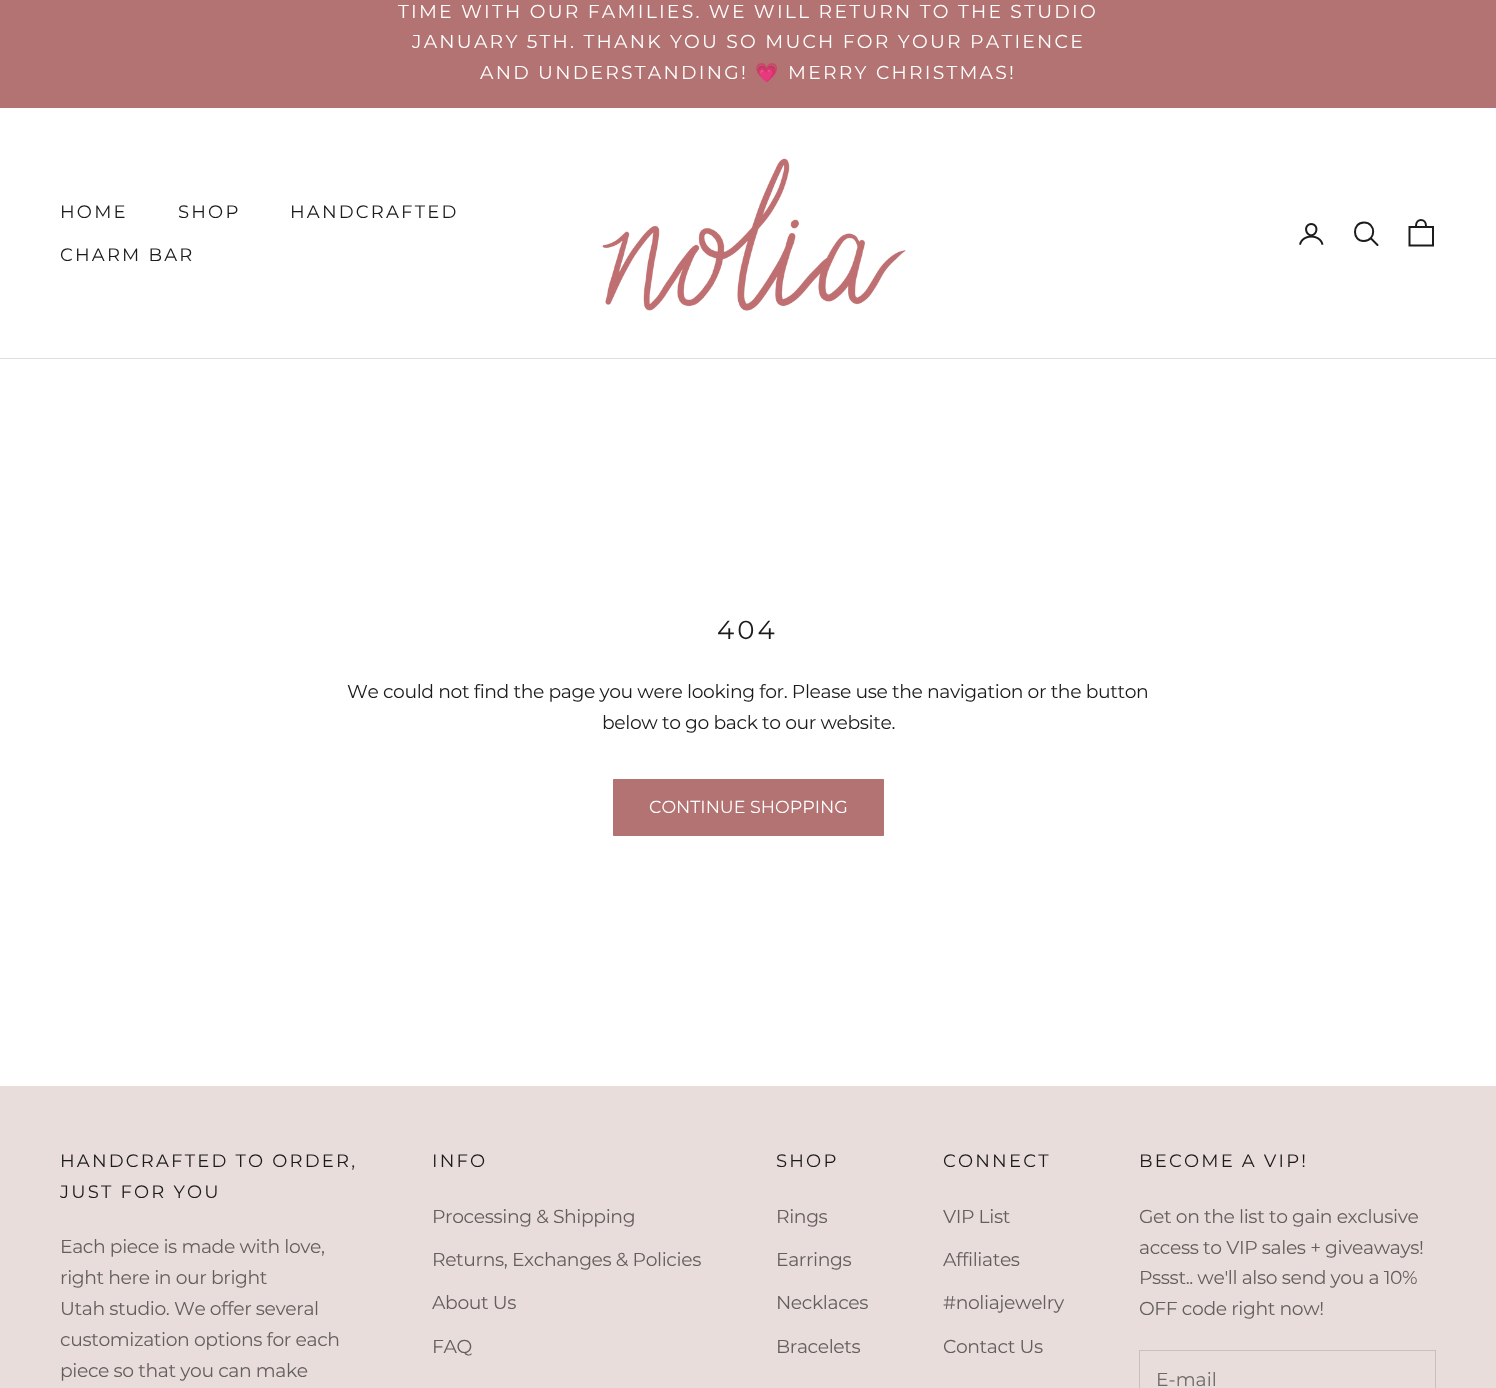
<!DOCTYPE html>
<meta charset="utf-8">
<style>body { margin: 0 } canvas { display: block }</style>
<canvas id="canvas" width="1496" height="1388"></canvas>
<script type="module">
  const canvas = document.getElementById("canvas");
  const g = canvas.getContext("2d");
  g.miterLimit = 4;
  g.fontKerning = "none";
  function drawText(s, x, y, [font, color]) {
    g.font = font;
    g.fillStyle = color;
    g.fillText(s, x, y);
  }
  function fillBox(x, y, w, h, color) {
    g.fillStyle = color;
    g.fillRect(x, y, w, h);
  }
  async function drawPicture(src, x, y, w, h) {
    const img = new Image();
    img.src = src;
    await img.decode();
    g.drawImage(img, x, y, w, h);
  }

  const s1 = ["18.75px Montserrat", "#FFFFFF"];
  const s2 = ["18.75px Noto Color Emoji", "#FFFFFF"];
  const s3 = ["18px Montserrat", "#1C1B1B"];
  const s4 = ["26px Montserrat", "#1C1B1B"];
  const s5 = ["18.75px Montserrat", "#1C1B1B"];
  const s6 = ["17.5px Montserrat", "#FFFFFF"];
  const s7 = ["18.75px Montserrat", "#635F5E"];
  const s8 = ["18.75px Montserrat", "#6E6968"];

  fillBox(0, 0, 1496, 1388, "#FFFFFF");
  fillBox(0, 0, 1496, 108, "#B47373");
  g.letterSpacing = "2.25px";
  drawText("TIME WITH OUR FAMILIES. WE WILL RETURN TO THE STUDIO", 398, 18, s1);
  drawText("JANUARY 5TH. THANK YOU SO MUCH FOR YOUR PATIENCE", 412, 48, s1);
  drawText("AND UNDERSTANDING!", 480, 79, s1);
  drawText("💗", 755, 79, s2);
  drawText("MERRY CHRISTMAS!", 788, 79, s1);
  fillBox(0, 358, 1496, 1, "#DDDDDD");
  g.letterSpacing = "2.2px";
  drawText("HOME", 60, 218, s3);
  drawText("SHOP", 178, 218, s3);
  drawText("HANDCRAFTED", 290, 218, s3);
  drawText("CHARM BAR", 60, 261, s3);
  await drawPicture("pic1.png", 602, 158, 304, 153);
  await drawPicture("pic2.png", 1299, 223, 25, 22);
  g.beginPath();
  g.moveTo(1364, 222.5);
  g.bezierCurveTo(1352, 222.5, 1352, 241.5, 1364, 241);
  g.bezierCurveTo(1376.5, 240.5, 1376, 222.5, 1364, 222.5);
  g.closePath();
  g.strokeStyle = "#1C1C1C";
  g.lineWidth = 2;
  g.stroke();
  g.beginPath();
  g.moveTo(1371, 238.5);
  g.lineTo(1377.5, 245);
  g.lineCap = "round";
  g.stroke();
  g.beginPath();
  g.moveTo(1433, 245.5);
  g.lineTo(1433, 227);
  g.lineTo(1409.5, 227);
  g.lineTo(1409.5, 245.5);
  g.closePath();
  g.moveTo(1416, 226);
  g.bezierCurveTo(1416, 218, 1426, 218, 1426, 226);
  g.lineCap = "butt";
  g.stroke();
  g.letterSpacing = "3px";
  drawText("404", 717, 639, s4);
  g.letterSpacing = "-0.38px";
  drawText("We could not find the page you were looking for. Please use the navigation or the button", 347, 698, s5);
  drawText("below to go back to our website.", 602, 729, s5);
  g.fillStyle = "#B47373";
  g.beginPath();
  g.rect(613.5, 779.5, 270, 56);
  g.fill();
  g.strokeStyle = "#B47373";
  g.lineWidth = 1;
  g.stroke();
  g.letterSpacing = "0px";
  drawText("CONTINUE SHOPPING", 649, 813, s6);
  fillBox(0, 1086, 1496, 302, "#E8DDDB");
  g.letterSpacing = "2.2px";
  drawText("HANDCRAFTED TO ORDER,", 60, 1167, s3);
  drawText("JUST FOR YOU", 60, 1198, s3);
  g.letterSpacing = "-0.38px";
  drawText("Each piece is made with love,", 60, 1253, s7);
  drawText("right here in our bright", 60, 1284, s7);
  drawText("Utah studio. We offer several", 60, 1315, s7);
  drawText("customization options for each", 60, 1346, s7);
  drawText("piece so that you can make", 60, 1377, s7);
  g.letterSpacing = "2.2px";
  drawText("INFO", 432, 1167, s3);
  g.letterSpacing = "-0.38px";
  drawText("Processing & Shipping", 432, 1223, s7);
  drawText("Returns, Exchanges & Policies", 432, 1266, s7);
  drawText("About Us", 432, 1309, s7);
  drawText("FAQ", 432, 1353, s7);
  g.letterSpacing = "2.2px";
  drawText("SHOP", 776, 1167, s3);
  g.letterSpacing = "-0.38px";
  drawText("Rings", 776, 1223, s7);
  drawText("Earrings", 776, 1266, s7);
  drawText("Necklaces", 776, 1309, s7);
  drawText("Bracelets", 776, 1353, s7);
  g.letterSpacing = "2.2px";
  drawText("CONNECT", 943, 1167, s3);
  g.letterSpacing = "-0.38px";
  drawText("VIP List", 943, 1223, s7);
  drawText("Affiliates", 943, 1266, s7);
  drawText("#noliajewelry", 943, 1309, s7);
  drawText("Contact Us", 943, 1353, s7);
  g.letterSpacing = "2.2px";
  drawText("BECOME A VIP!", 1139, 1167, s3);
  g.letterSpacing = "-0.38px";
  drawText("Get on the list to gain exclusive", 1139, 1223, s7);
  drawText("access to VIP sales + giveaways!", 1139, 1254, s7);
  drawText("Pssst.. we'll also send you a 10%", 1139, 1284, s7);
  drawText("OFF code right now!", 1139, 1315, s7);
  g.strokeStyle = "#C9C0BE";
  g.strokeRect(1139.5, 1350.5, 296, 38);
  g.letterSpacing = "0px";
  drawText("E-mail", 1156, 1386, s8);
</script>
